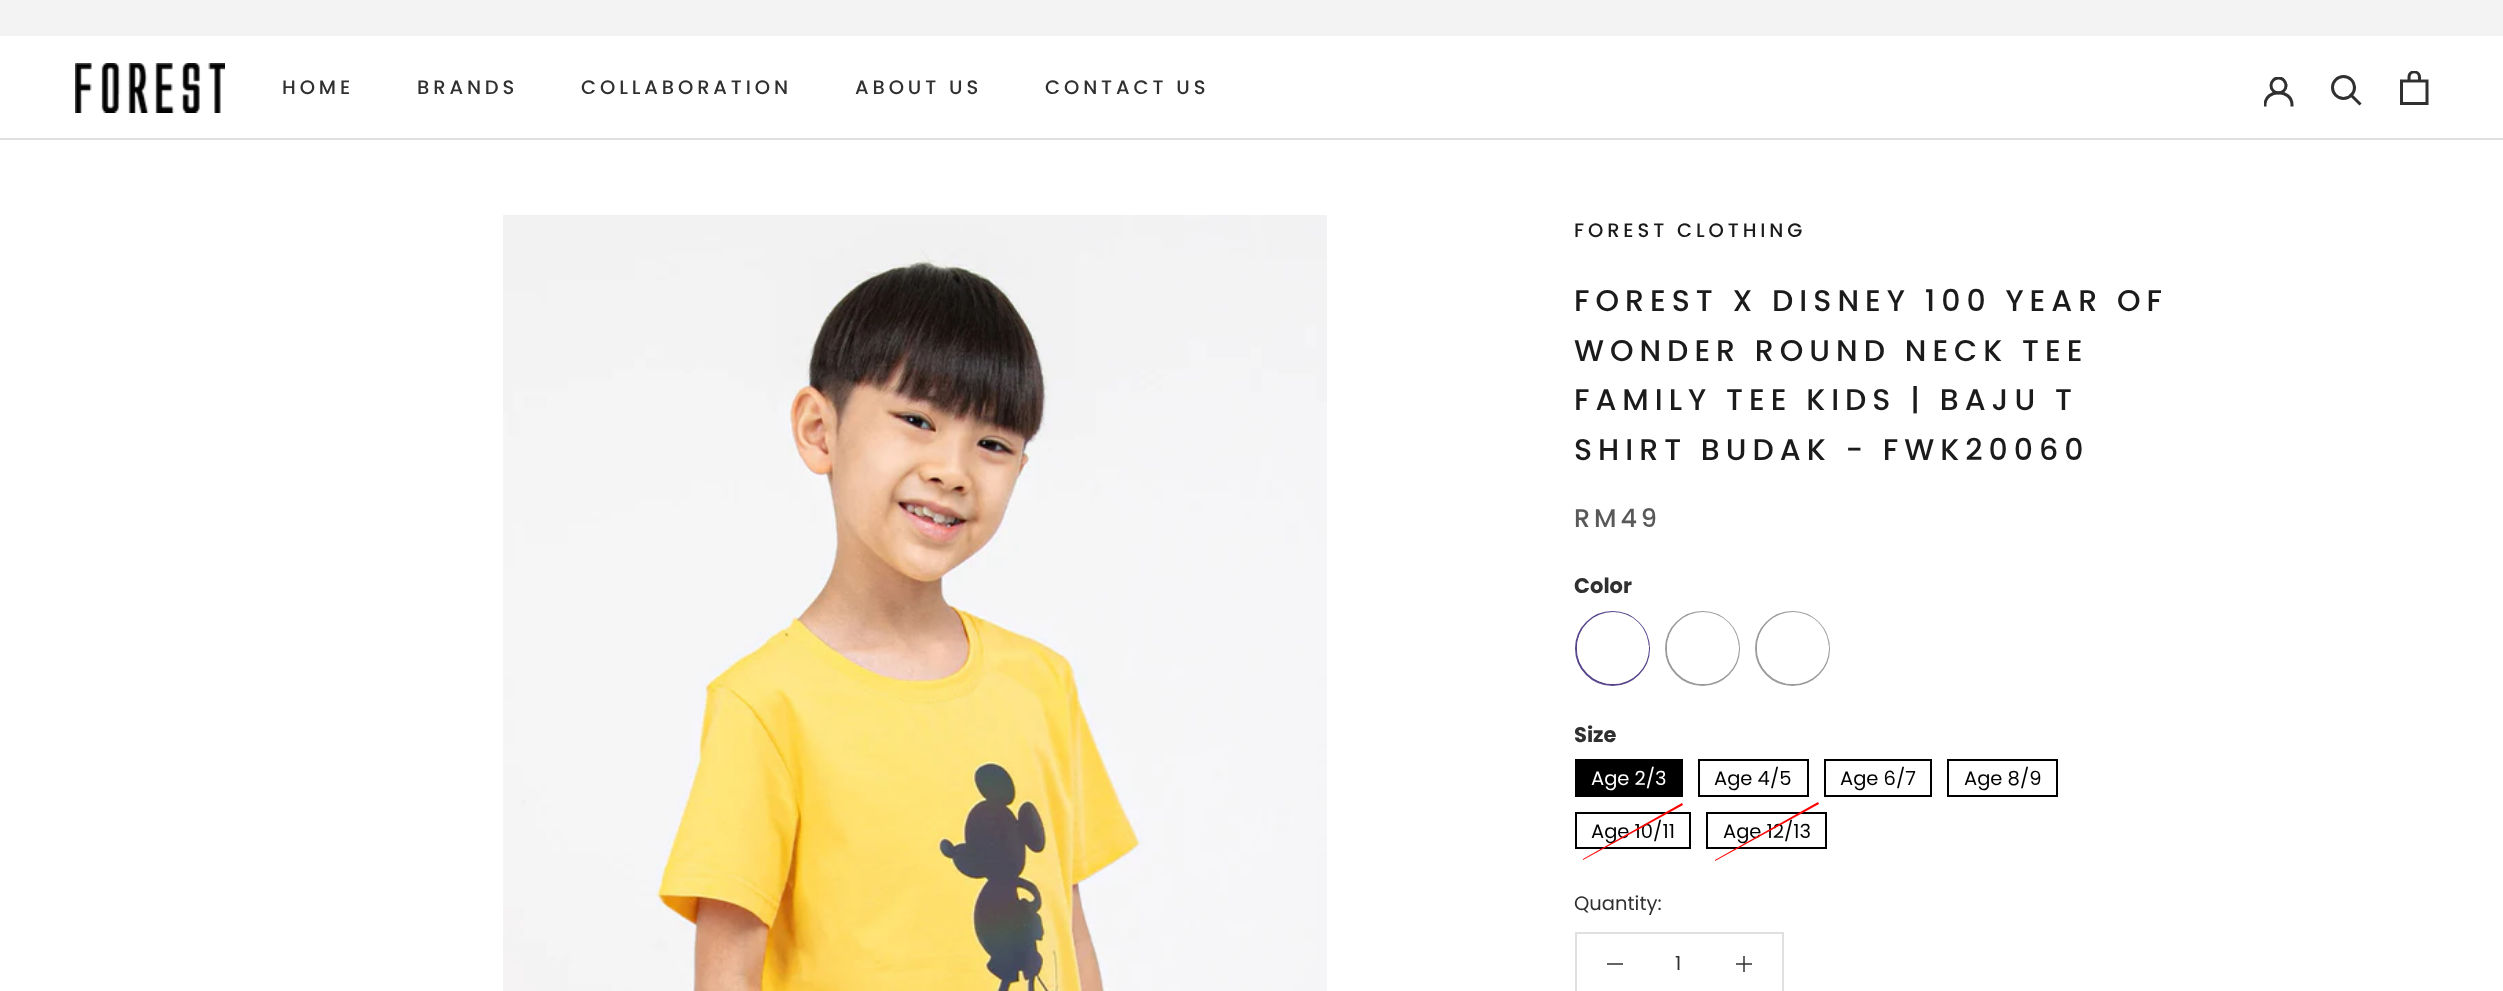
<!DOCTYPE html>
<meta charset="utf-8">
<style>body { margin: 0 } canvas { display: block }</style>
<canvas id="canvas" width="2503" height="991"></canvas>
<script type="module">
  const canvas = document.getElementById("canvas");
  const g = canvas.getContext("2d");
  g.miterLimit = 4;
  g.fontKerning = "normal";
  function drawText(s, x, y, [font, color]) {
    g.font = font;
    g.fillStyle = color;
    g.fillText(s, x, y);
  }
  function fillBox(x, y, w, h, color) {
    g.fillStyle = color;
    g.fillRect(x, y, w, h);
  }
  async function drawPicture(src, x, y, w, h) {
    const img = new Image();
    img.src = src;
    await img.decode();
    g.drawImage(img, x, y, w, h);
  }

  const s1 = ["500 19.5px Poppins", "#303030"];
  const s2 = ["500 19.5px Poppins", "#1C1B1B"];
  const s3 = ["500 30px Poppins", "#1C1B1B"];
  const s4 = ["500 25.5px Poppins", "#595959"];
  const s5 = ["bold 21px Poppins", "#303030"];
  const s6 = ["19.5px Poppins", "#FFFFFF"];
  const s7 = ["19.5px Poppins", "#000000"];
  const s8 = ["19.5px Poppins", "#303030"];

  fillBox(0, 0, 2503, 991, "#FFFFFF");
  fillBox(1736, 963, 16, 2, "#646464");
  fillBox(0, 0, 2503, 36, "#F3F3F3");
  fillBox(0, 138, 2503, 2, "#E0E0E0");
  await drawPicture("pic1.png", 75, 63, 150, 50);
  g.letterSpacing = "3.9px";
  drawText("HOME", 282, 94, s1);
  drawText("BRANDS", 417, 94, s1);
  drawText("COLLABORATION", 581, 94, s1);
  drawText("ABOUT US", 855, 94, s1);
  drawText("CONTACT US", 1045, 94, s1);
  g.save();
  g.beginPath();
  g.rect(2264, 77, 30, 30);
  g.clip();
  g.beginPath();
  g.moveTo(2265, 105);
  g.bezierCurveTo(2265, 88.5, 2292, 88.5, 2292, 105);
  g.strokeStyle = "#303030";
  g.lineWidth = 3;
  g.lineCap = "square";
  g.stroke();
  g.beginPath();
  g.arc(2278.5, 85.5, 7.5, 0, Math.PI * 2);
  g.stroke();
  g.restore();
  g.beginPath();
  g.moveTo(2359.5, 103.5);
  g.lineTo(2351, 95);
  g.strokeStyle = "#303030";
  g.lineWidth = 3;
  g.lineCap = "square";
  g.stroke();
  g.beginPath();
  g.arc(2343.5, 87.5, 11, 0, Math.PI * 2);
  g.stroke();
  await drawPicture("pic2.png", 2400, 71, 29, 34);
  await drawPicture("pic3.png", 503, 215, 824, 776);
  drawText("FOREST CLOTHING", 1574, 237, s2);
  g.letterSpacing = "6px";
  drawText("FOREST X DISNEY 100 YEAR OF", 1574, 311, s3);
  drawText("WONDER ROUND NECK TEE", 1574, 361, s3);
  drawText("FAMILY TEE KIDS | BAJU T", 1574, 410, s3);
  drawText("SHIRT BUDAK - FWK20060", 1574, 460, s3);
  g.letterSpacing = "3.9px";
  drawText("RM49", 1574, 527, s4);
  g.letterSpacing = "0px";
  drawText("Color", 1574, 593, s5);
  g.beginPath();
  g.arc(1612.5, 648.5, 36.5, 0, Math.PI * 2);
  g.strokeStyle = "#58468C";
  g.lineWidth = 2;
  g.stroke();
  g.beginPath();
  g.arc(1613, 648, 33.5, 0, Math.PI * 2);
  g.strokeStyle = "#FFFFFF";
  g.lineWidth = 5;
  g.stroke();
  g.beginPath();
  g.arc(1702.5, 648.5, 36.5, 0, Math.PI * 2);
  g.strokeStyle = "#9B9B9B";
  g.lineWidth = 2;
  g.stroke();
  g.beginPath();
  g.arc(1703, 648, 33.5, 0, Math.PI * 2);
  g.strokeStyle = "#FFFFFF";
  g.lineWidth = 5;
  g.stroke();
  g.beginPath();
  g.arc(1792.5, 648.5, 36.5, 0, Math.PI * 2);
  g.strokeStyle = "#9B9B9B";
  g.lineWidth = 2;
  g.stroke();
  g.beginPath();
  g.arc(1793, 648, 33.5, 0, Math.PI * 2);
  g.strokeStyle = "#FFFFFF";
  g.lineWidth = 5;
  g.stroke();
  drawText("Size", 1574, 742, s5);
  fillBox(1575, 759, 108, 38, "#000000");
  drawText("Age 2/3", 1591, 785, s6);
  g.strokeStyle = "#000000";
  g.lineWidth = 2;
  g.strokeRect(1699, 760, 109, 36);
  drawText("Age 4/5", 1714, 785, s7);
  g.strokeRect(1825, 760, 106, 36);
  drawText("Age 6/7", 1840, 785, s7);
  g.strokeRect(1948, 760, 109, 36);
  drawText("Age 8/9", 1964, 785, s7);
  g.strokeRect(1576, 813, 114, 35);
  drawText("Age 10/11", 1591, 838, s7);
  g.fillStyle = "#FF0000";
  g.beginPath();
  g.moveTo(1583, 859);
  g.lineTo(1682, 803);
  g.lineTo(1683, 805);
  g.lineTo(1583, 860);
  g.closePath();
  g.fill();
  g.strokeRect(1707, 813, 119, 35);
  drawText("Age 12/13", 1723, 838, s7);
  g.fillStyle = "#FF0000";
  g.beginPath();
  g.moveTo(1715, 860);
  g.lineTo(1818, 802);
  g.lineTo(1819, 804);
  g.lineTo(1715, 861);
  g.closePath();
  g.fill();
  drawText("Quantity:", 1574, 910, s8);
  g.strokeStyle = "#E0E0E0";
  g.strokeRect(1576, 933, 207, 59);
  fillBox(1607, 963, 16, 2, "#646464");
  drawText("1", 1675, 970, s8);
  fillBox(1743, 956, 2, 16, "#646464");
  fillBox(1743, 963, 2, 2, "#3D3D3D");
</script>
